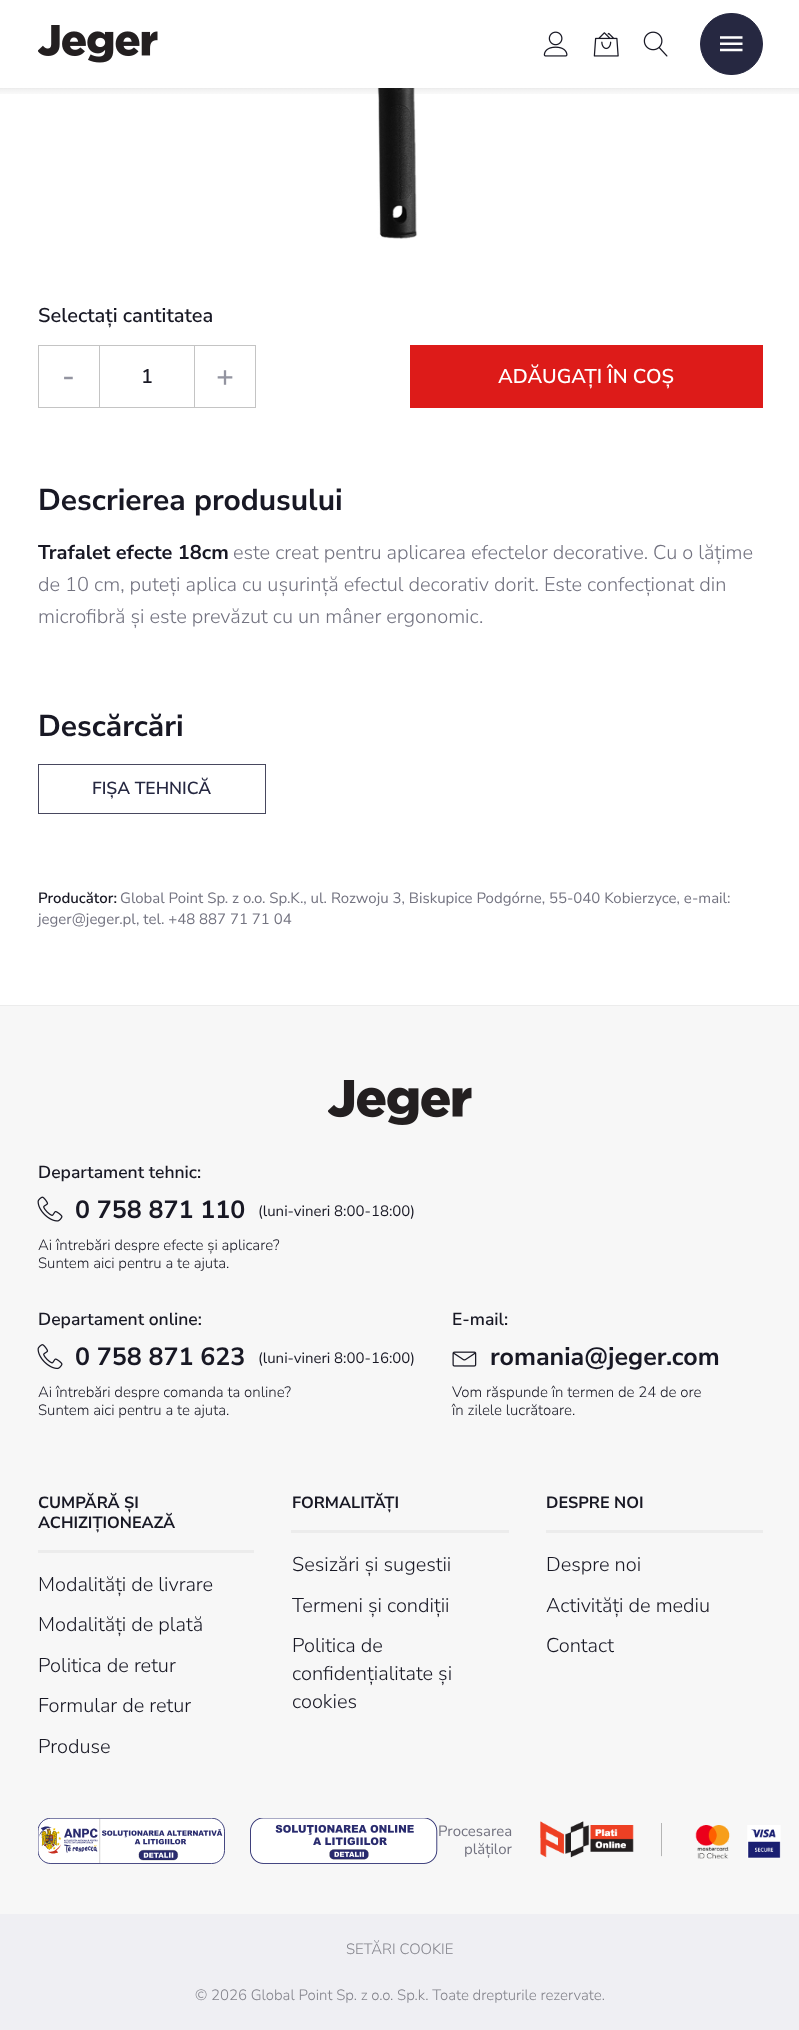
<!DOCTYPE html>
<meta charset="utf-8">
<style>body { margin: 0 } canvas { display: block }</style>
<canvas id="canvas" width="799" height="2030"></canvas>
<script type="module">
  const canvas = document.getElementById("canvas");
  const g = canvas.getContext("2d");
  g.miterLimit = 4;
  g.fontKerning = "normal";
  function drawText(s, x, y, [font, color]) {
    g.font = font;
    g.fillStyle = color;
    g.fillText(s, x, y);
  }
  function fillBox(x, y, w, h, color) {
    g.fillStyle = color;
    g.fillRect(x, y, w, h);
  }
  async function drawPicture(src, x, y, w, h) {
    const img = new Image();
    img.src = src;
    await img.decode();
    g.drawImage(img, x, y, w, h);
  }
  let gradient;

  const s1 = ["600 20px Nunito Sans", "#181824"];
  const s2 = ["600 30px Nunito Sans", "#9394A0"];
  const s3 = ["600 20px Nunito Sans", "#FFFFFF"];
  const s4 = ["bold 30px Nunito Sans", "#181824"];
  const s5 = ["bold 20px Nunito Sans", "#181824"];
  const s6 = ["300 20px Nunito Sans", "#737380"];
  const s7 = ["600 17.5px Nunito Sans", "#262841"];
  const s8 = ["600 15px Nunito Sans", "#181824"];
  const s9 = ["15px Nunito Sans", "#737380"];
  const s10 = ["600 17.5px Nunito Sans", "#181824"];
  const s11 = ["bold 25px Nunito Sans", "#181824"];
  const s12 = ["15px Nunito Sans", "#181824"];
  const s13 = ["300 15px Nunito Sans", "#181824"];
  const s14 = ["bold 16.25px Nunito Sans", "#181824"];
  const s15 = ["300 20px Nunito Sans", "#181824"];
  const s16 = ["300 15px Nunito Sans", "#84848C"];

  fillBox(0, 0, 799, 2030, "#FFFFFF");
  await drawPicture("pic1.png", 38, 25, 120, 38);
  await drawPicture("pic2.png", 543, 31, 25, 26);
  await drawPicture("pic3.png", 593, 32, 26, 25);
  await drawPicture("pic4.png", 643, 31, 25, 26);
  g.fillStyle = "#262841";
  g.beginPath();
  g.roundRect(700.5, 13.5, 62, 61, 30.5);
  g.fill();
  g.strokeStyle = "#262841";
  g.stroke();
  await drawPicture("pic5.png", 720, 36, 23, 16);
  await drawPicture("pic6.png", 377, 88, 41, 151);
  gradient = g.createLinearGradient(400, 87, 400, 98);
  gradient.addColorStop(0, "rgba(0, 0, 0, 0.1)");
  gradient.addColorStop(0.25, "rgba(0, 0, 0, 0.05)");
  gradient.addColorStop(0.5, "rgba(0, 0, 0, 0.03)");
  gradient.addColorStop(1, "rgba(0, 0, 0, 0)");
  g.fillStyle = gradient;
  g.fillRect(0, 88, 799, 6);
  drawText("Selectați cantitatea", 38, 322, s1);
  g.strokeStyle = "#C4C4C4";
  g.strokeRect(99.5, 345.5, 95, 62);
  g.strokeRect(38.5, 345.5, 61, 62);
  drawText("-", 62, 386, s2);
  drawText("1", 141, 383, s1);
  g.strokeRect(194.5, 345.5, 61, 62);
  drawText("+", 216, 386, s2);
  fillBox(410, 345, 353, 63, "#DD1B19");
  drawText("ADĂUGAȚI ÎN COȘ", 498, 383, s3);
  drawText("Descrierea produsului", 38, 510, s4);
  drawText("Trafalet efecte 18cm", 38, 559, s5);
  drawText("este creat pentru aplicarea efectelor decorative. Cu o lățime", 233, 559, s6);
  drawText("de 10 cm, puteți aplica cu ușurință efectul decorativ dorit. Este confecționat din", 38, 591, s6);
  drawText("microfibră și este prevăzut cu un mâner ergonomic.", 38, 623, s6);
  drawText("Descărcări", 38, 736, s4);
  g.strokeStyle = "#47485E";
  g.strokeRect(38.5, 764.5, 227, 49);
  drawText("FIȘA TEHNICĂ", 92, 794, s7);
  drawText("Producător:", 38, 903, s8);
  drawText("Global Point Sp. z o.o. Sp.K., ul. Rozwoju 3, Biskupice Podgórne, 55-040 Kobierzyce, e-mail:", 120, 903, s9);
  drawText("jeger@jeger.pl, tel. +48 887 71 71 04", 38, 924, s9);
  fillBox(0, 1006, 799, 908, "#F7F7F7");
  fillBox(0, 1005, 799, 1, "#ECECEC");
  await drawPicture("pic7.png", 328, 1080, 144, 45);
  drawText("Departament tehnic:", 38, 1178, s10);
  await drawPicture("pic8.png", 37, 1196, 26, 26);
  drawText("0 758 871 110", 75, 1218, s11);
  drawText("(luni-vineri 8:00-18:00)", 258, 1216, s12);
  drawText("Ai întrebări despre efecte și aplicare?", 38, 1250, s13);
  drawText("Suntem aici pentru a te ajuta.", 38, 1268, s13);
  drawText("Departament online:", 38, 1325, s10);
  await drawPicture("pic9.png", 37, 1344, 26, 26);
  drawText("0 758 871 623", 75, 1365, s11);
  drawText("(luni-vineri 8:00-16:00)", 258, 1363, s12);
  drawText("Ai întrebări despre comanda ta online?", 38, 1397, s13);
  drawText("Suntem aici pentru a te ajuta.", 38, 1415, s13);
  drawText("E-mail:", 452, 1325, s10);
  await drawPicture("pic10.png", 452, 1351, 25, 16);
  drawText("romania@jeger.com", 490, 1365, s11);
  drawText("Vom răspunde în termen de 24 de ore", 452, 1397, s13);
  drawText("în zilele lucrătoare.", 452, 1415, s13);
  drawText("CUMPĂRĂ ȘI", 38, 1508, s14);
  drawText("ACHIZIȚIONEAZĂ", 38, 1528, s14);
  fillBox(38, 1550, 216, 3, "#ECECEC");
  drawText("Modalități de livrare", 38, 1591, s15);
  drawText("Modalități de plată", 38, 1631, s15);
  drawText("Politica de retur", 38, 1672, s15);
  drawText("Formular de retur", 38, 1712, s15);
  drawText("Produse", 38, 1753, s15);
  drawText("FORMALITĂȚI", 292, 1508, s14);
  fillBox(291, 1530, 218, 3, "#ECECEC");
  drawText("Sesizări și sugestii", 292, 1571, s15);
  drawText("Termeni și condiții", 292, 1612, s15);
  drawText("Politica de", 292, 1652, s15);
  drawText("confidențialitate și", 292, 1680, s15);
  drawText("cookies", 292, 1708, s15);
  drawText("DESPRE NOI", 546, 1508, s14);
  fillBox(546, 1530, 217, 3, "#ECECEC");
  drawText("Despre noi", 546, 1571, s15);
  drawText("Activități de mediu", 546, 1612, s15);
  drawText("Contact", 546, 1652, s15);
  await drawPicture("pic11.png", 38, 1818, 187, 46);
  await drawPicture("pic12.png", 250, 1818, 188, 46);
  drawText("Procesarea", 438, 1836, s9);
  await drawPicture("pic13.png", 540, 1821, 241, 38);
  drawText("plăților", 464, 1854, s9);
  fillBox(0, 1914, 799, 116, "#EFEFF3");
  drawText("SETĂRI COOKIE", 346, 1954, s16);
  drawText("© 2026 Global Point Sp. z o.o. Sp.k. Toate drepturile rezervate.", 195, 2000, s16);
</script>
